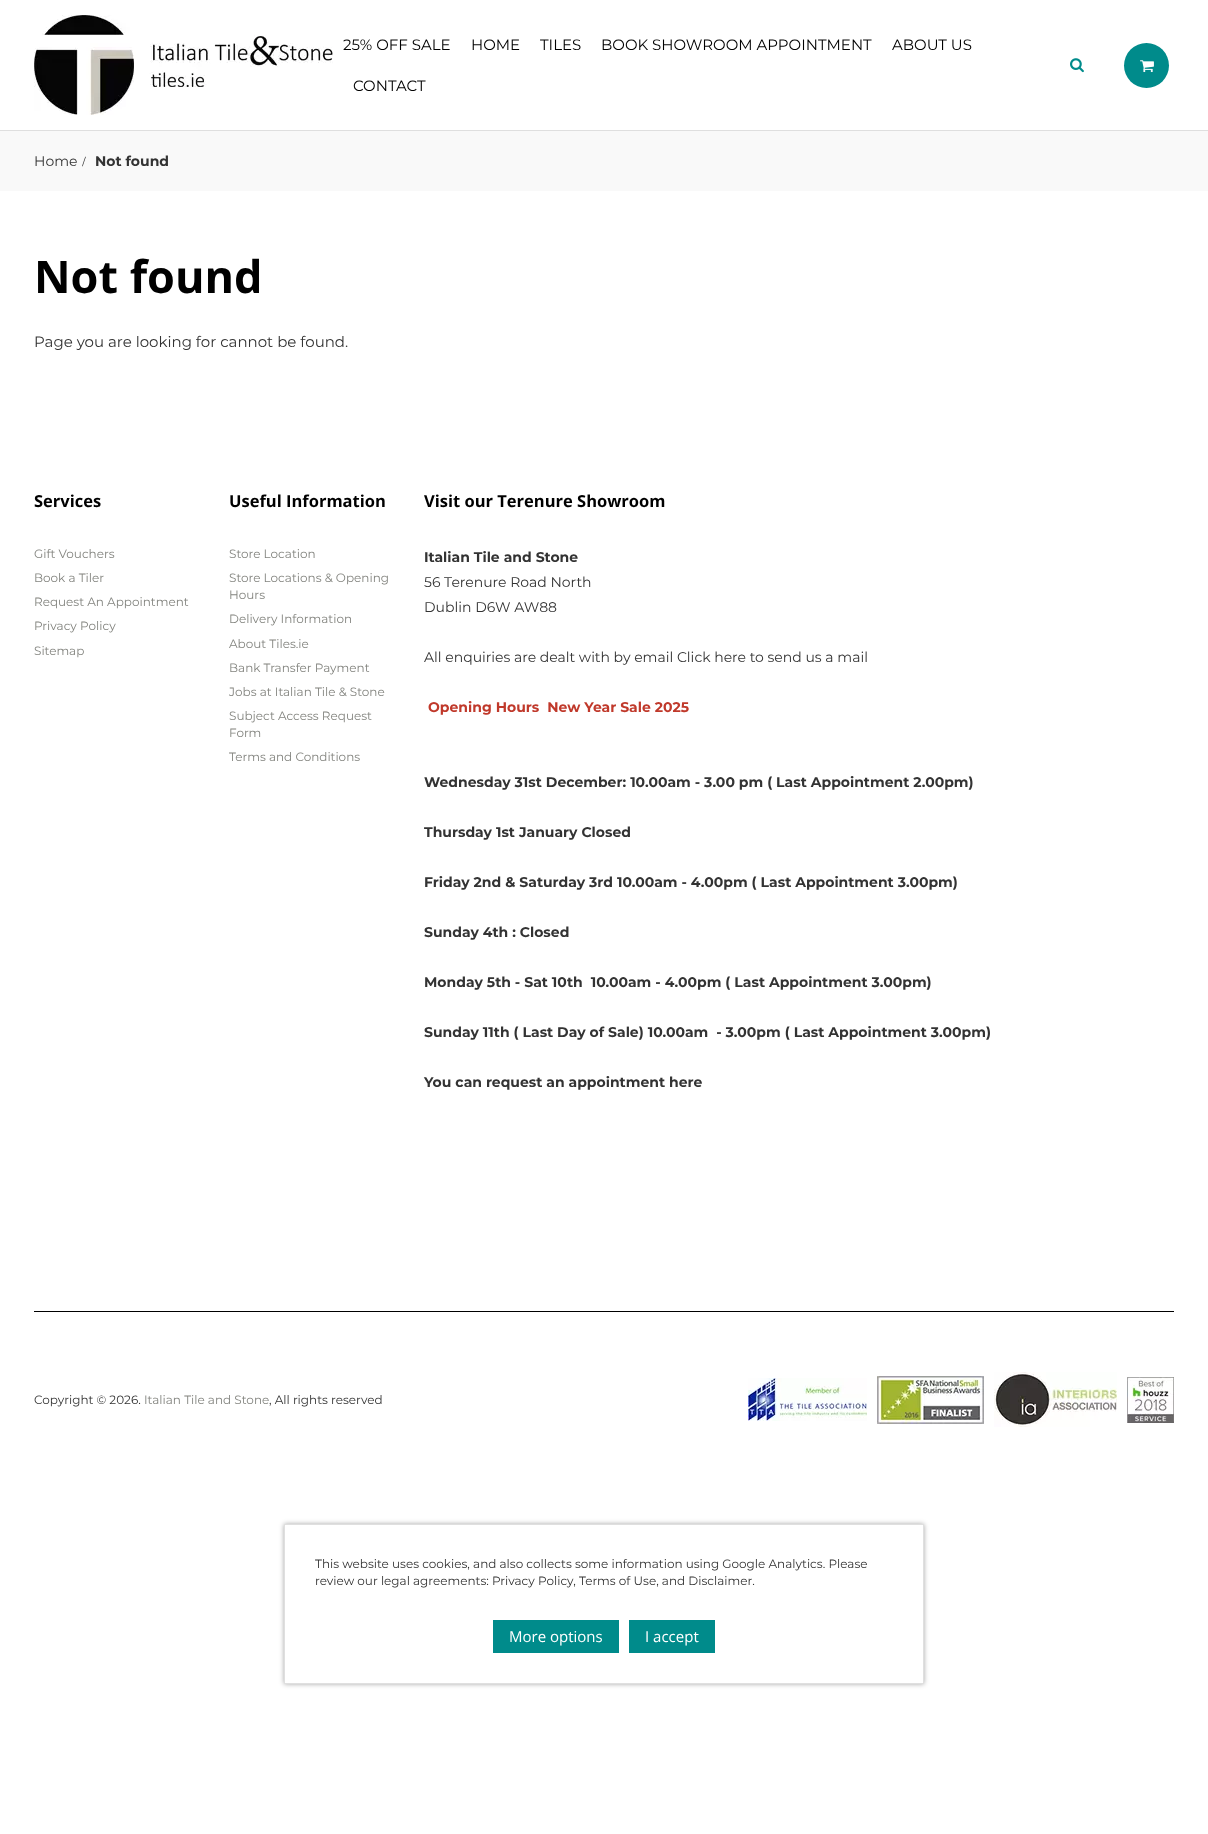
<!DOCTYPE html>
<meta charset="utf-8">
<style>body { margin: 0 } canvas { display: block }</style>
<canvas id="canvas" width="1208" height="1834"></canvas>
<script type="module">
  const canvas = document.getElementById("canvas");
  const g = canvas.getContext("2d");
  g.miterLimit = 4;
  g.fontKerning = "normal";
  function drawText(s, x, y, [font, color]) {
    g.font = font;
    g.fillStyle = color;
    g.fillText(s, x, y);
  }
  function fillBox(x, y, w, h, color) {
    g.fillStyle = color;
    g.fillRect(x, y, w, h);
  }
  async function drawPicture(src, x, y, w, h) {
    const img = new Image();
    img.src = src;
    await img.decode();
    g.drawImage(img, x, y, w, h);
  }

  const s1 = ["15px Montserrat", "#000000"];
  const s2 = ["14px Montserrat", "#333333"];
  const s3 = ["14px Liberation Serif", "#333333"];
  const s4 = ["bold 14px Montserrat", "#333333"];
  const s5 = ["bold 45px Open Sans", "#000000"];
  const s6 = ["15px Montserrat", "#333333"];
  const s7 = ["bold 16.5px Open Sans", "#000000"];
  const s8 = ["12px Montserrat", "#83847F"];
  const s9 = ["bold 14px Montserrat", "#C0392B"];
  const s10 = ["12px Montserrat", "#333333"];
  const s11 = ["15px Open Sans", "#FFFFFF"];

  fillBox(0, 0, 1208, 1834, "#FFFFFF");
  fillBox(0, 130, 1208, 1, "#DFDFDF");
  await drawPicture("pic1.png", 34, 15, 299, 100);
  drawText("25% OFF SALE", 343, 50, s1);
  drawText("HOME", 471, 50, s1);
  drawText("TILES", 540, 50, s1);
  drawText("BOOK SHOWROOM APPOINTMENT", 601, 50, s1);
  drawText("ABOUT US", 892, 50, s1);
  drawText("CONTACT", 353, 91, s1);
  await drawPicture("pic2.png", 1070, 58, 14, 15);
  g.fillStyle = "#008B8B";
  g.beginPath();
  g.arc(1146.5, 65.5, 22.5, 0, Math.PI * 2);
  g.fill();
  await drawPicture("pic3.png", 1140, 60, 14, 13);
  fillBox(0, 131, 1208, 60, "#F9F9F9");
  drawText("Home", 34, 166, s2);
  drawText("/", 82, 166, s3);
  drawText("Not found", 95, 166, s4);
  drawText("Not found", 34, 293, s5);
  drawText("Page you are looking for cannot be found.", 34, 347, s6);
  drawText("Services", 34, 507, s7);
  drawText("Gift Vouchers", 34, 558, s8);
  drawText("Book a Tiler", 34, 582, s8);
  drawText("Request An Appointment", 34, 606, s8);
  drawText("Privacy Policy", 34, 630, s8);
  drawText("Sitemap", 34, 655, s8);
  drawText("Useful Information", 229, 507, s7);
  drawText("Store Location", 229, 558, s8);
  drawText("Store Locations & Opening", 229, 582, s8);
  drawText("Hours", 229, 599, s8);
  drawText("Delivery Information", 229, 623, s8);
  drawText("About Tiles.ie", 229, 648, s8);
  drawText("Bank Transfer Payment", 229, 672, s8);
  drawText("Jobs at Italian Tile & Stone", 229, 696, s8);
  drawText("Subject Access Request", 229, 720, s8);
  drawText("Form", 229, 737, s8);
  drawText("Terms and Conditions", 229, 761, s8);
  drawText("Visit our Terenure Showroom", 424, 507, s7);
  drawText("Italian Tile and Stone", 424, 562, s4);
  drawText("56 Terenure Road North", 424, 587, s2);
  drawText("Dublin D6W AW88", 424, 612, s2);
  drawText("All enquiries are dealt with by email Click here to send us a mail", 424, 662, s2);
  drawText("Opening Hours  New Year Sale 2025", 428, 712, s9);
  drawText("Wednesday 31st December: 10.00am - 3.00 pm ( Last Appointment 2.00pm)", 424, 787, s4);
  drawText("Thursday 1st January Closed", 424, 837, s4);
  drawText("Friday 2nd & Saturday 3rd 10.00am - 4.00pm ( Last Appointment 3.00pm)", 424, 887, s4);
  drawText("Sunday 4th : Closed", 424, 937, s4);
  drawText("Monday 5th - Sat 10th  10.00am - 4.00pm ( Last Appointment 3.00pm)", 424, 987, s4);
  drawText("Sunday 11th ( Last Day of Sale) 10.00am  - 3.00pm ( Last Appointment 3.00pm)", 424, 1037, s4);
  drawText("You can request an appointment here", 424, 1087, s4);
  fillBox(34, 1311, 1140, 1, "#000000");
  drawText("Copyright © 2026.", 34, 1404, s10);
  drawText("Italian Tile and Stone", 144, 1404, s8);
  drawText(", All rights reserved", 269, 1404, s10);
  await drawPicture("pic4.png", 748, 1378, 119, 43);
  await drawPicture("pic5.png", 877, 1376, 107, 48);
  await drawPicture("pic6.png", 994, 1372, 123, 55);
  await drawPicture("pic7.png", 1127, 1377, 47, 46);
  g.save();
  g.beginPath();
  g.moveTo(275, 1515);
  g.lineTo(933, 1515);
  g.lineTo(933, 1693);
  g.lineTo(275, 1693);
  g.closePath();
  g.moveTo(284, 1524);
  g.lineTo(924, 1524);
  g.lineTo(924, 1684);
  g.lineTo(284, 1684);
  g.closePath();
  g.clip("evenodd");
  g.fillStyle = "rgba(0, 0, 0, 0.35)";
  g.filter = "blur(2.5px)";
  g.beginPath();
  g.rect(284, 1524, 640, 160);
  g.fill();
  g.filter = "none";
  g.restore();
  g.strokeStyle = "#DFDFDF";
  g.strokeRect(284.5, 1524.5, 639, 159);
  drawText("This website uses cookies, and also collects some information using Google Analytics. Please", 315, 1568, s10);
  drawText("review our legal agreements: Privacy Policy, Terms of Use, and Disclaimer.", 315, 1585, s10);
  fillBox(493, 1620, 126, 33, "#008B8B");
  drawText("More options", 509, 1642, s11);
  fillBox(629, 1620, 86, 33, "#008B8B");
  drawText("I accept", 645, 1642, s11);
</script>
